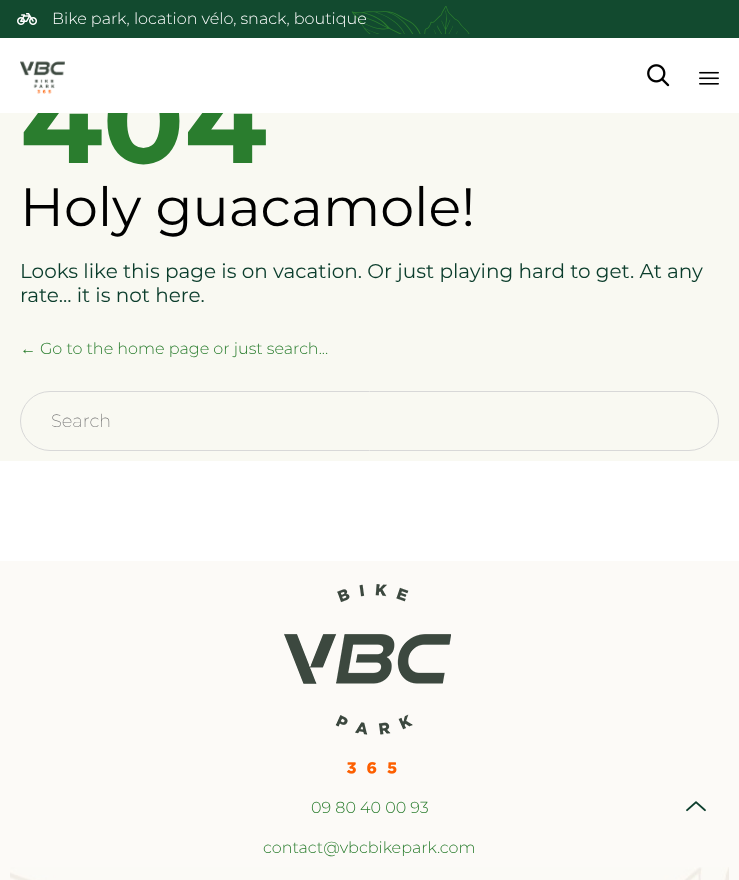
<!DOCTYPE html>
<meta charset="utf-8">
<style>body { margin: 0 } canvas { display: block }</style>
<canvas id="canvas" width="739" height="880"></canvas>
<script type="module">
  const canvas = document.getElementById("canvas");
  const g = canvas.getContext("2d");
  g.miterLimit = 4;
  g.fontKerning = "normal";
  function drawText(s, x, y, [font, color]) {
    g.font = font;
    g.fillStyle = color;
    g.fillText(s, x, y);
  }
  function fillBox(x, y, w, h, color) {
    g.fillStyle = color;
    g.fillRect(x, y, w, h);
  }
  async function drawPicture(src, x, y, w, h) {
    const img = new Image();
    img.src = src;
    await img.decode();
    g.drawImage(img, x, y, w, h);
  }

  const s1 = ["bold 120px Montserrat", "#2A7D2E"];
  const s2 = ["300 16px Montserrat", "#FFFFFF"];
  const s3 = ["54px Montserrat", "#000000"];
  const s4 = ["20px Montserrat", "#0B3D2C"];
  const s5 = ["16px Liberation Serif", "#2A7D2E"];
  const s6 = ["300 16px Montserrat", "#2A7D2E"];
  const s7 = ["200 18px Montserrat", "#757575"];

  fillBox(0, 0, 739, 880, "#FFFFFF");
  fillBox(0, 113, 739, 348, "#F9F9F2");
  drawText("404", 20, 163, s1);
  fillBox(38, 77, 210, 36, "#FFFFFF");
  fillBox(0, 0, 739, 38, "#124A2F");
  await drawPicture("pic1.png", 351, 6, 119, 28);
  await drawPicture("pic2.png", 17, 13, 20, 12);
  drawText("Bike park, location vélo, snack, boutique", 52, 24, s2);
  await drawPicture("pic3.png", 20, 61, 45, 33);
  await drawPicture("pic4.png", 647, 64, 23, 23);
  await drawPicture("pic5.png", 699, 71, 20, 14);
  drawText("Holy guacamole!", 20, 226, s3);
  drawText("Looks like this page is on vacation. Or just playing hard to get. At any", 20, 278, s4);
  drawText("rate... it is not here.", 20, 302, s4);
  drawText("←", 20, 354, s5);
  drawText("Go to the home page or just search...", 40, 354, s6);
  g.beginPath();
  g.roundRect(20.5, 391.5, 698, 59, 29.5);
  g.strokeStyle = "#D8D8D8";
  g.stroke();
  drawText("Search", 51, 427, s7);
  fillBox(0, 561, 739, 319, "#FCFAF7");
  await drawPicture("pic6.png", 10, 867, 719, 13);
  await drawPicture("pic7.png", 284, 584, 167, 190);
  drawText("09 80 40 00 93", 311, 813, s6);
  drawText("contact@vbcbikepark.com", 263, 853, s6);
  await drawPicture("pic8.png", 686, 801, 20, 11);
</script>
